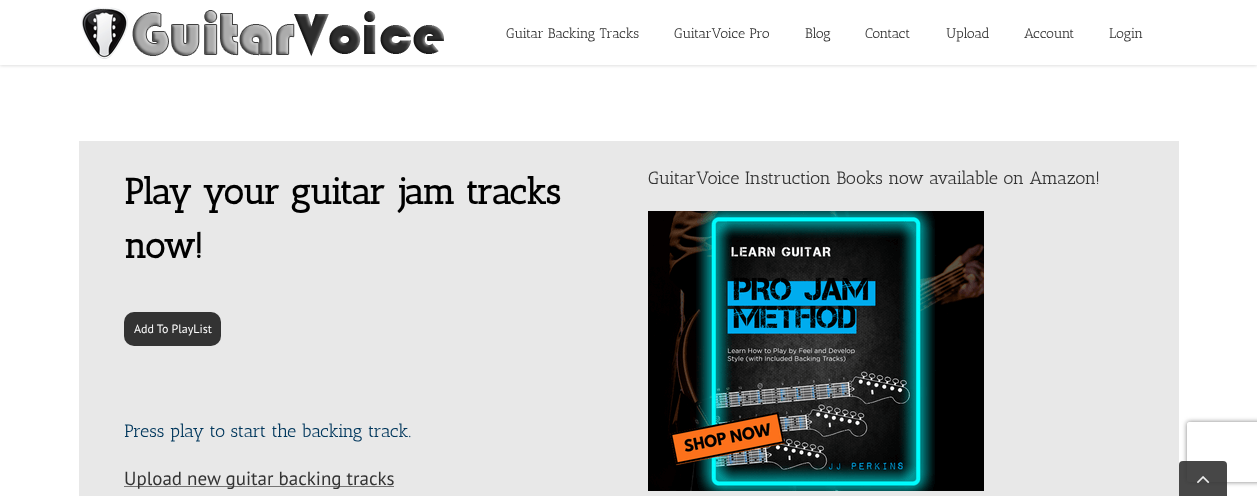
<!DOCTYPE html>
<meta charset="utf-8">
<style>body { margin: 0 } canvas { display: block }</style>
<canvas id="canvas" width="1257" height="496"></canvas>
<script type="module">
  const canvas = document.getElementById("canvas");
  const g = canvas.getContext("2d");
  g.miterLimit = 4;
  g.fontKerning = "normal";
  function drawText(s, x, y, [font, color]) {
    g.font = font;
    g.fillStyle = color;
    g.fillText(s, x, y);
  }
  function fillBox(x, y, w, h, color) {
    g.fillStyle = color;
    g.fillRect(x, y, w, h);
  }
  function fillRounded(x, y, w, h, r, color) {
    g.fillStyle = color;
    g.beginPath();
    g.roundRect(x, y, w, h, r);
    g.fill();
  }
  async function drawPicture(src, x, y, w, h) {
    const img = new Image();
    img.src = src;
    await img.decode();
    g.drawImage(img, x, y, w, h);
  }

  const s1 = ["14px Antic Slab", "#333333"];
  const s2 = ["bold 36px Antic Slab", "#000000"];
  const s3 = ["12px PT Sans", "#FFFFFF"];
  const s4 = ["18px Antic Slab", "#01375C"];
  const s5 = ["19px PT Sans", "#333333"];
  const s6 = ["18px Antic Slab", "#333333"];

  fillBox(0, 0, 1257, 496, "#FFFFFF");
  g.fillStyle = "rgba(0, 0, 0, 0.12)";
  g.filter = "blur(1.5px)";
  g.beginPath();
  g.rect(0, 1, 1257, 65);
  g.fill();
  g.filter = "none";
  fillBox(0, 0, 1257, 65, "#FFFFFF");
  await drawPicture("pic1.png", 81, 7, 363, 52);
  drawText("Guitar Backing Tracks", 506, 38, s1);
  drawText("GuitarVoice Pro", 674, 38, s1);
  drawText("Blog", 805, 38, s1);
  drawText("Contact", 865, 38, s1);
  drawText("Upload", 946, 38, s1);
  drawText("Account", 1024, 38, s1);
  drawText("Login", 1109, 38, s1);
  fillBox(79, 141, 1100, 355, "#E8E8E8");
  drawText("Play your guitar jam tracks", 124, 204, s2);
  drawText("now!", 124, 258, s2);
  fillRounded(124, 312, 97, 34, 10, "#333333");
  drawText("Add To PlayList", 134, 333, s3);
  drawText("Press play to start the backing track.", 124, 437, s4);
  fillBox(124, 486, 270, 1, "#747474");
  drawText("Upload new guitar backing tracks", 124, 485, s5);
  drawText("GuitarVoice Instruction Books now available on Amazon!", 648, 184, s6);
  await drawPicture("pic2.png", 648, 211, 336, 280);
  g.save();
  g.beginPath();
  g.moveTo(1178, 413);
  g.lineTo(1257, 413);
  g.lineTo(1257, 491);
  g.lineTo(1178, 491);
  g.closePath();
  g.moveTo(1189, 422);
  g.lineTo(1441, 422);
  g.bezierCurveTo(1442, 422, 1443, 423, 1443, 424);
  g.lineTo(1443, 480);
  g.bezierCurveTo(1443, 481, 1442, 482, 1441, 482);
  g.lineTo(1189, 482);
  g.bezierCurveTo(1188, 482, 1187, 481, 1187, 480);
  g.lineTo(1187, 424);
  g.bezierCurveTo(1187, 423, 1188, 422, 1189, 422);
  g.closePath();
  g.clip("evenodd");
  g.fillStyle = "#808080";
  g.filter = "blur(2.5px)";
  g.beginPath();
  g.roundRect(1187, 422, 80, 60, 2);
  g.fill();
  g.filter = "none";
  g.restore();
  g.fillStyle = "rgba(51, 51, 51, 0.9)";
  g.beginPath();
  g.roundRect(1179, 461, 48, 35, [4, 4, 0, 0]);
  g.fill();
  await drawPicture("pic3.png", 1197, 476, 13, 8);
</script>
